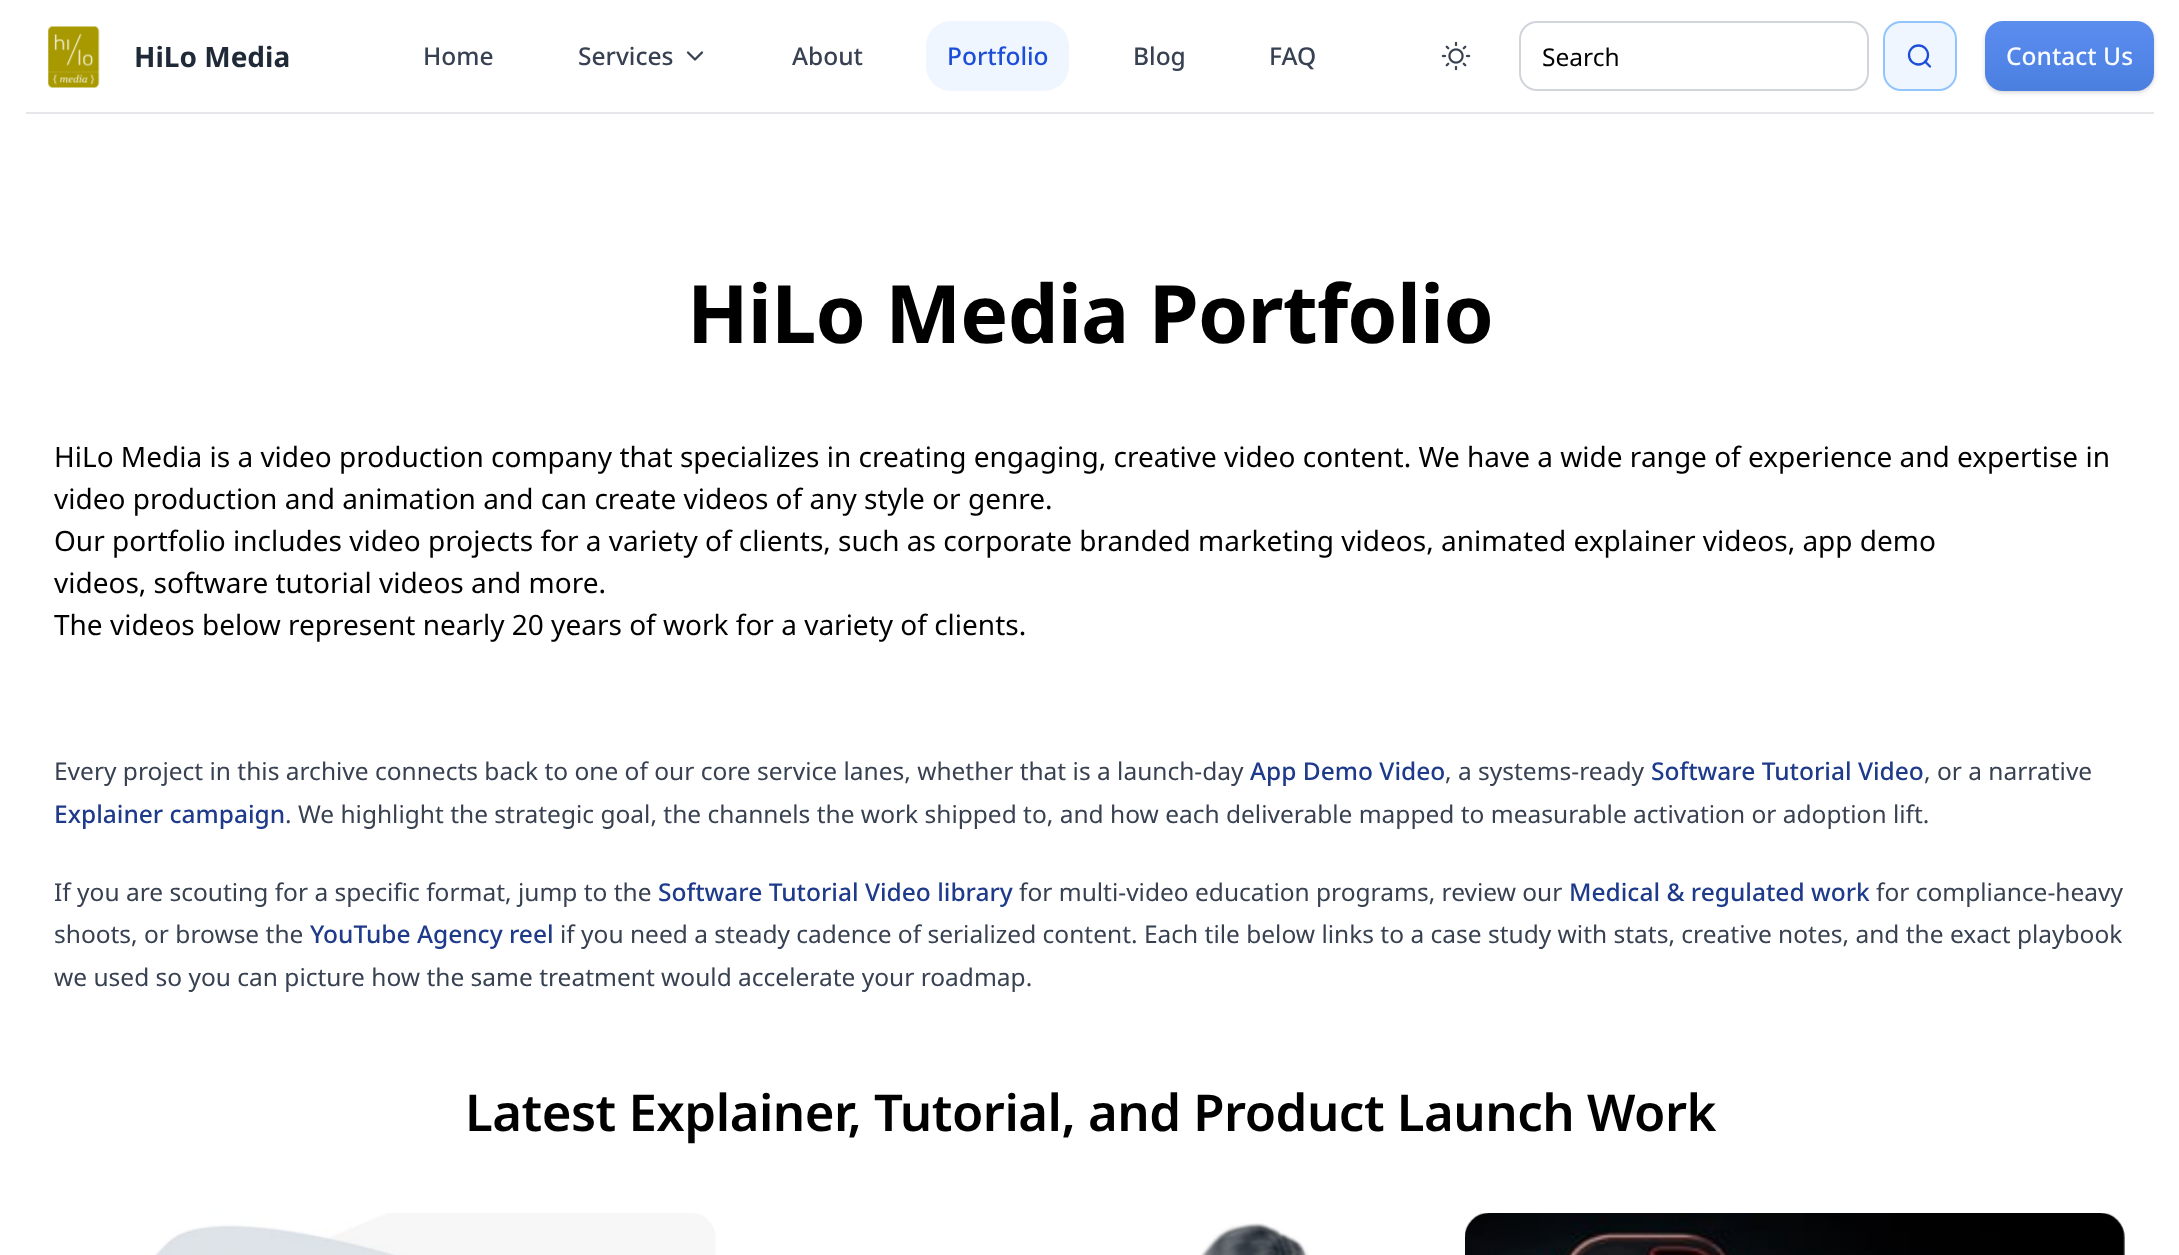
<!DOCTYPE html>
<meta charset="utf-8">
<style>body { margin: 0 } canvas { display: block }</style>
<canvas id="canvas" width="2179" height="1255"></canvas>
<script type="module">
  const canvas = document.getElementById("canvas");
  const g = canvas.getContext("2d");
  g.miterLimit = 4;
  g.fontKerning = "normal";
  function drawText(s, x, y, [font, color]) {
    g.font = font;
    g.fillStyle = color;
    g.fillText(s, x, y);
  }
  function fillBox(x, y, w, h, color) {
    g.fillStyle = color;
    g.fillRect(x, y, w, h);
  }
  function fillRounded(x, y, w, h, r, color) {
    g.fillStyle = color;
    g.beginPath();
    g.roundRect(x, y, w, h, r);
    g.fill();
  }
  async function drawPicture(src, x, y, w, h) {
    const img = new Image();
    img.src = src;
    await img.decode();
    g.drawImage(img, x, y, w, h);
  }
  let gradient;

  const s1 = ["bold 28px Noto Sans", "#1F2937"];
  const s2 = ["500 24.5px Noto Sans", "#374151"];
  const s3 = ["500 24.5px Noto Sans", "#1D4ED8"];
  const s4 = ["24.5px Noto Sans", "#000000"];
  const s5 = ["500 24.5px Noto Sans", "#F8FBFF"];
  const s6 = ["bold 80.6px Noto Sans", "#000000"];
  const s7 = ["28px Noto Sans", "#000000"];
  const s8 = ["24.5px Noto Sans", "#374151"];
  const s9 = ["500 24.5px Noto Sans", "#1E3A8A"];
  const s10 = ["600 50.9px Noto Sans", "#000000"];

  fillBox(0, 0, 2179, 1255, "#FFFFFF");
  fillBox(26, 112, 2128, 2, "#E5E7EB");
  await drawPicture("pic1.png", 48, 26, 52, 62);
  drawText("HiLo Media", 134, 67, s1);
  drawText("Home", 423, 65, s2);
  drawText("Services", 578, 65, s2);
  g.beginPath();
  g.moveTo(688, 52.5);
  g.lineTo(695, 59.5);
  g.lineTo(702, 52.5);
  g.strokeStyle = "#374151";
  g.lineWidth = 2.3;
  g.lineCap = "round";
  g.lineJoin = "round";
  g.stroke();
  drawText("About", 792, 65, s2);
  fillRounded(926, 21, 143, 70, 25, "#EFF6FF");
  drawText("Portfolio", 947, 65, s3);
  drawText("Blog", 1133, 65, s2);
  drawText("FAQ", 1269, 65, s2);
  await drawPicture("pic2.png", 1441, 41, 30, 30);
  g.beginPath();
  g.roundRect(1520, 22, 348, 68, 17);
  g.strokeStyle = "#D1D5DB";
  g.lineWidth = 2;
  g.lineJoin = "miter";
  g.stroke();
  drawText("Search", 1542, 66, s4);
  g.fillStyle = "#EFF6FF";
  g.beginPath();
  g.roundRect(1884, 22, 72, 68, 17);
  g.fill();
  g.strokeStyle = "#93C5FD";
  g.stroke();
  g.beginPath();
  g.arc(1918.5, 55, 9.5, 0, Math.PI * 2);
  g.strokeStyle = "#1D4ED8";
  g.lineWidth = 2.3;
  g.stroke();
  g.beginPath();
  g.moveTo(1930, 66.5);
  g.lineTo(1925, 61.5);
  g.lineJoin = "round";
  g.stroke();
  g.fillStyle = "rgba(0, 0, 0, 0.1)";
  g.filter = "blur(2px)";
  g.beginPath();
  g.roundRect(1986, 25, 167, 66, 16);
  g.fill();
  g.filter = "none";
  g.filter = "blur(2.5px)";
  g.beginPath();
  g.roundRect(1985, 23, 169, 70, 18);
  g.fill();
  g.filter = "none";
  gradient = g.createLinearGradient(2069, 21, 2069, 91);
  gradient.addColorStop(0, "#5B8DEF");
  gradient.addColorStop(1, "#4A7FE0");
  g.fillStyle = gradient;
  g.beginPath();
  g.roundRect(1985, 21, 169, 70, 18);
  g.fill();
  drawText("Contact Us", 2006, 65, s5);
  g.letterSpacing = "-0.8px";
  drawText("HiLo Media Portfolio", 687, 343, s6);
  g.letterSpacing = "0px";
  drawText("HiLo Media is a video production company that specializes in creating engaging, creative video content. We have a wide range of experience and expertise in", 54, 467, s7);
  drawText("video production and animation and can create videos of any style or genre.", 54, 509, s7);
  drawText("Our portfolio includes video projects for a variety of clients, such as corporate branded marketing videos, animated explainer videos, app demo", 54, 551, s7);
  drawText("videos, software tutorial videos and more.", 54, 593, s7);
  drawText("The videos below represent nearly 20 years of work for a variety of clients.", 54, 635, s7);
  drawText("Every project in this archive connects back to one of our core service lanes, whether that is a launch-day", 54, 780, s8);
  drawText("App Demo Video", 1250, 780, s9);
  drawText(", a systems-ready", 1445, 780, s8);
  drawText("Software Tutorial Video", 1651, 780, s9);
  drawText(", or a narrative", 1924, 780, s8);
  drawText("Explainer campaign", 54, 823, s9);
  drawText(". We highlight the strategic goal, the channels the work shipped to, and how each deliverable mapped to measurable activation or adoption lift.", 285, 823, s8);
  drawText("If you are scouting for a specific format, jump to the", 54, 901, s8);
  drawText("Software Tutorial Video library", 658, 901, s9);
  drawText("for multi-video education programs, review our", 1019, 901, s8);
  drawText("Medical & regulated work", 1569, 901, s9);
  drawText("for compliance-heavy", 1876, 901, s8);
  drawText("shoots, or browse the", 54, 943, s8);
  drawText("YouTube Agency reel", 310, 943, s9);
  drawText("if you need a steady cadence of serialized content. Each tile below links to a case study with stats, creative notes, and the exact playbook", 560, 943, s8);
  drawText("we used so you can picture how the same treatment would accelerate your roadmap.", 54, 986, s8);
  g.letterSpacing = "-0.5px";
  drawText("Latest Explainer, Tutorial, and Product Launch Work", 465, 1131, s10);
  await drawPicture("pic3.png", 155, 1213, 561, 42);
  await drawPicture("pic4.png", 1200, 1223, 109, 32);
  await drawPicture("pic5.png", 1465, 1213, 660, 42);
</script>
